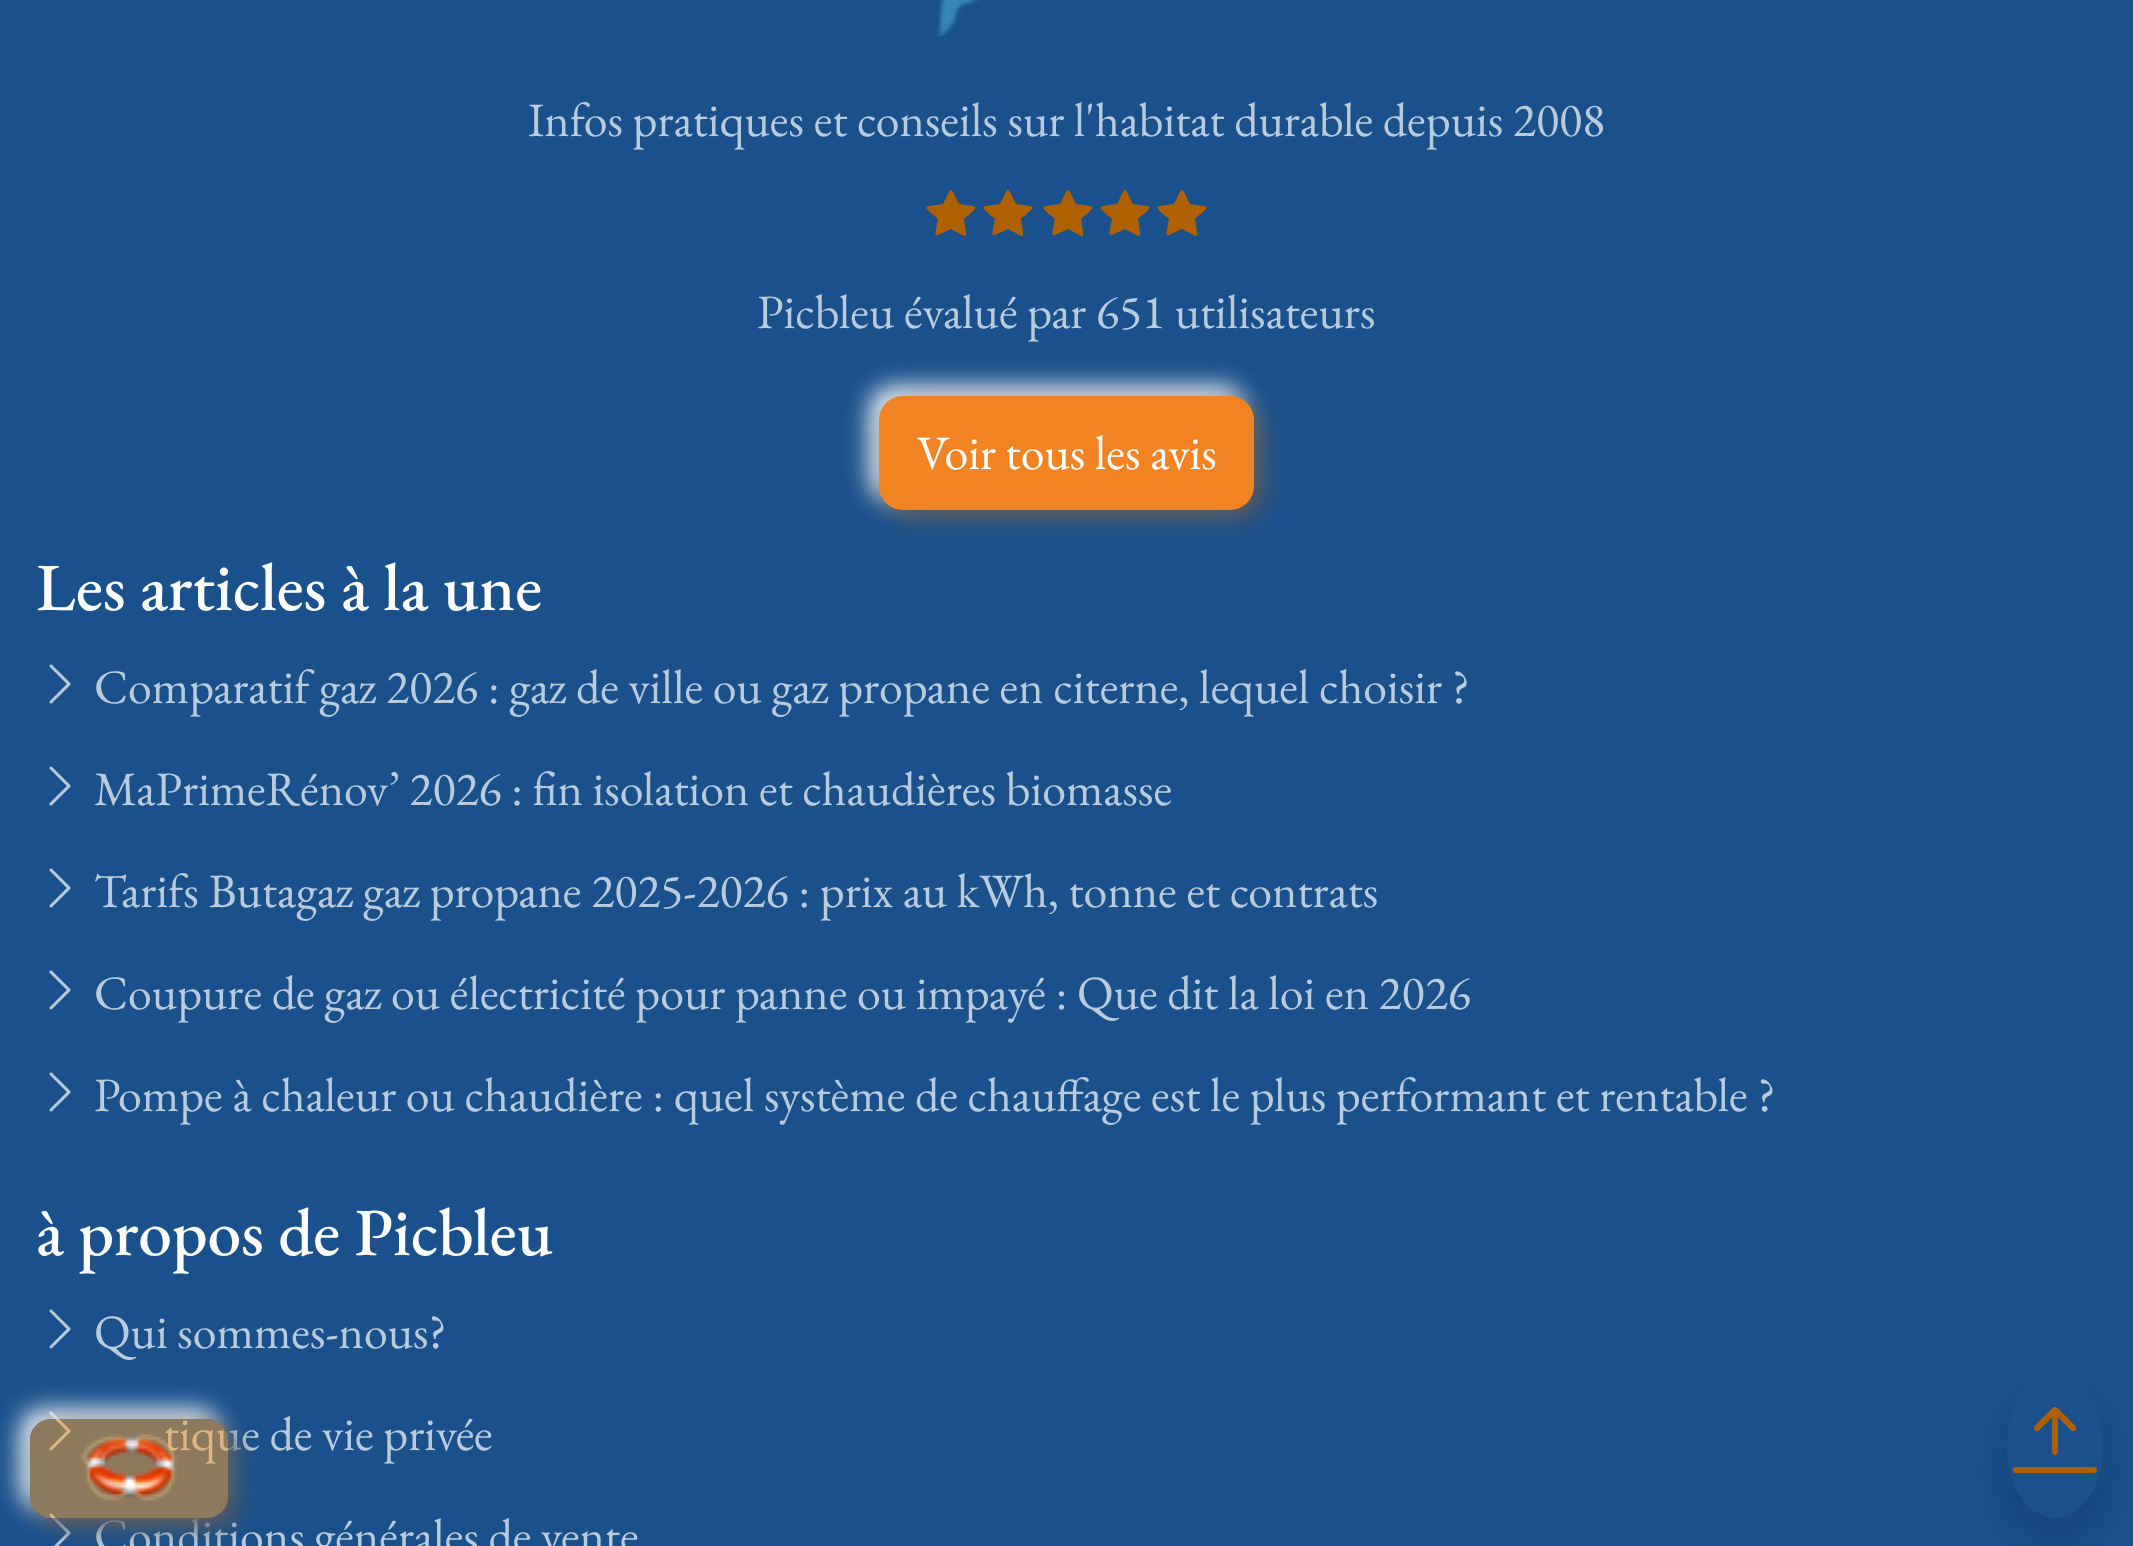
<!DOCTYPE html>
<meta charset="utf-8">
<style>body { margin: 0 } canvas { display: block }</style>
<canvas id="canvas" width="2133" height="1546"></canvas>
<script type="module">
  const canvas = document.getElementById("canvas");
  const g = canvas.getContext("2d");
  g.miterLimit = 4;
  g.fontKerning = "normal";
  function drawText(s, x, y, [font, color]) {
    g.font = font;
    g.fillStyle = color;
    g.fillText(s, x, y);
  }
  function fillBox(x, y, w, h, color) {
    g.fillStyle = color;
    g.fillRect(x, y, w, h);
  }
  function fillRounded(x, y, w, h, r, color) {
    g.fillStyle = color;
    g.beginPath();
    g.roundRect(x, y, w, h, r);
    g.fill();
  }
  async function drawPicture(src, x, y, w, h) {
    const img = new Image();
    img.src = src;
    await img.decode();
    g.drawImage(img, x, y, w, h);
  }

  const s1 = ["48px EB Garamond", "#BACBDD"];
  const s2 = ["48px EB Garamond", "#FFFFFF"];
  const s3 = ["500 67.5px EB Garamond", "#FFFFFF"];

  fillBox(0, 0, 2133, 1546, "#1A518D");
  await drawPicture("pic1.png", 936, 0, 45, 36);
  drawText("Infos pratiques et conseils sur l'habitat durable depuis 2008", 528, 136, s1);
  g.fillStyle = "#AF6100";
  g.beginPath();
  g.moveTo(938, 235);
  g.bezierCurveTo(934, 237, 936, 230, 936, 229);
  g.lineTo(938, 219);
  g.bezierCurveTo(922, 205, 922, 207, 943, 204);
  g.bezierCurveTo(953, 185, 949, 185, 959, 204);
  g.bezierCurveTo(980, 207, 980, 205, 964, 219);
  g.bezierCurveTo(967, 240, 970, 239, 951, 229);
  g.closePath();
  g.fill();
  g.beginPath();
  g.moveTo(995, 235);
  g.bezierCurveTo(991, 237, 993, 230, 993, 229);
  g.lineTo(995, 219);
  g.bezierCurveTo(979, 205, 979, 207, 1000, 204);
  g.bezierCurveTo(1010, 185, 1006, 185, 1016, 204);
  g.bezierCurveTo(1037, 207, 1037, 205, 1021, 219);
  g.bezierCurveTo(1024, 240, 1027, 239, 1008, 229);
  g.closePath();
  g.fill();
  g.beginPath();
  g.moveTo(1055, 235);
  g.bezierCurveTo(1051, 237, 1053, 230, 1053, 229);
  g.lineTo(1055, 219);
  g.bezierCurveTo(1039, 205, 1039, 207, 1060, 204);
  g.bezierCurveTo(1070, 185, 1066, 185, 1076, 204);
  g.bezierCurveTo(1097, 207, 1097, 205, 1081, 219);
  g.bezierCurveTo(1084, 240, 1087, 239, 1068, 229);
  g.closePath();
  g.fill();
  g.beginPath();
  g.moveTo(1112, 235);
  g.bezierCurveTo(1108, 237, 1110, 230, 1110, 229);
  g.lineTo(1112, 219);
  g.bezierCurveTo(1096, 205, 1096, 207, 1117, 204);
  g.bezierCurveTo(1127, 185, 1123, 185, 1133, 204);
  g.bezierCurveTo(1154, 207, 1154, 205, 1138, 219);
  g.bezierCurveTo(1141, 240, 1144, 239, 1125, 229);
  g.closePath();
  g.fill();
  g.beginPath();
  g.moveTo(1169, 235);
  g.bezierCurveTo(1165, 237, 1167, 230, 1167, 229);
  g.lineTo(1169, 219);
  g.bezierCurveTo(1153, 205, 1153, 207, 1174, 204);
  g.bezierCurveTo(1184, 185, 1180, 185, 1190, 204);
  g.bezierCurveTo(1211, 207, 1211, 205, 1195, 219);
  g.bezierCurveTo(1198, 240, 1201, 239, 1182, 229);
  g.closePath();
  g.fill();
  drawText("Picbleu évalué par 651 utilisateurs", 757, 328, s1);
  g.fillStyle = "#FFFFFF";
  g.filter = "blur(12px)";
  g.beginPath();
  g.roundRect(870, 387, 375, 114, 24);
  g.fill();
  g.filter = "none";
  g.fillStyle = "#555555";
  g.filter = "blur(12px)";
  g.beginPath();
  g.roundRect(888, 405, 375, 114, 24);
  g.fill();
  g.filter = "none";
  fillRounded(879, 396, 375, 114, 24, "#F18322");
  drawText("Voir tous les avis", 917, 469, s2);
  drawText("Les articles à la une", 36, 610, s3);
  await drawPicture("pic2.png", 49, 664, 22, 40);
  drawText("Comparatif gaz 2026 : gaz de ville ou gaz propane en citerne, lequel choisir ?", 94, 703, s1);
  await drawPicture("pic2.png", 49, 766, 22, 40);
  drawText("MaPrimeRénov’ 2026 : fin isolation et chaudières biomasse", 94, 805, s1);
  await drawPicture("pic2.png", 49, 868, 22, 40);
  drawText("Tarifs Butagaz gaz propane 2025-2026 : prix au kWh, tonne et contrats", 94, 907, s1);
  await drawPicture("pic2.png", 49, 970, 22, 40);
  drawText("Coupure de gaz ou électricité pour panne ou impayé : Que dit la loi en 2026", 94, 1009, s1);
  await drawPicture("pic2.png", 49, 1072, 22, 40);
  drawText("Pompe à chaleur ou chaudière : quel système de chauffage est le plus performant et rentable ?", 94, 1111, s1);
  drawText("à propos de Picbleu", 36, 1255, s3);
  await drawPicture("pic2.png", 49, 1309, 22, 40);
  drawText("Qui sommes-nous?", 94, 1348, s1);
  await drawPicture("pic2.png", 49, 1411, 22, 40);
  drawText("tique de vie privée", 164, 1450, s1);
  await drawPicture("pic3.png", 49, 1513, 22, 33);
  drawText("Conditions générales de vente", 94, 1552, s1);
  g.save();
  g.beginPath();
  g.moveTo(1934, 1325);
  g.lineTo(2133, 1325);
  g.lineTo(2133, 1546);
  g.lineTo(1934, 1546);
  g.closePath();
  g.moveTo(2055, 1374);
  g.bezierCurveTo(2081.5, 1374, 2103, 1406, 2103, 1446);
  g.bezierCurveTo(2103, 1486, 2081.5, 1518, 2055, 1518);
  g.bezierCurveTo(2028.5, 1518, 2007, 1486, 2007, 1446);
  g.bezierCurveTo(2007, 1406, 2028.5, 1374, 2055, 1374);
  g.closePath();
  g.clip("evenodd");
  g.fillStyle = "rgba(0, 0, 0, 0.15)";
  g.filter = "blur(24px)";
  g.beginPath();
  g.roundRect(2007, 1398, 96, 144, 48);
  g.fill();
  g.filter = "none";
  g.restore();
  await drawPicture("pic4.png", 2013, 1406, 84, 68);
  g.save();
  g.beginPath();
  g.moveTo(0, 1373);
  g.lineTo(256, 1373);
  g.lineTo(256, 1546);
  g.lineTo(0, 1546);
  g.closePath();
  g.moveTo(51, 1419);
  g.lineTo(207, 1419);
  g.bezierCurveTo(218.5, 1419, 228, 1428.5, 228, 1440);
  g.lineTo(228, 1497);
  g.bezierCurveTo(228, 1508.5, 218.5, 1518, 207, 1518);
  g.lineTo(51, 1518);
  g.bezierCurveTo(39.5, 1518, 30, 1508.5, 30, 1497);
  g.lineTo(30, 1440);
  g.bezierCurveTo(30, 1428.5, 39.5, 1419, 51, 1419);
  g.closePath();
  g.clip("evenodd");
  g.fillStyle = "#FFFFFF";
  g.filter = "blur(12px)";
  g.beginPath();
  g.roundRect(21, 1410, 198, 99, 21);
  g.fill();
  g.filter = "none";
  g.restore();
  g.save();
  g.beginPath();
  g.moveTo(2, 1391);
  g.lineTo(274, 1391);
  g.lineTo(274, 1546);
  g.lineTo(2, 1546);
  g.closePath();
  g.moveTo(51, 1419);
  g.lineTo(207, 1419);
  g.bezierCurveTo(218.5, 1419, 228, 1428.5, 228, 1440);
  g.lineTo(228, 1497);
  g.bezierCurveTo(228, 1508.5, 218.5, 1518, 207, 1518);
  g.lineTo(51, 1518);
  g.bezierCurveTo(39.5, 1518, 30, 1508.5, 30, 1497);
  g.lineTo(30, 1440);
  g.bezierCurveTo(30, 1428.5, 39.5, 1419, 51, 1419);
  g.closePath();
  g.clip("evenodd");
  g.fillStyle = "#555555";
  g.filter = "blur(12px)";
  g.beginPath();
  g.roundRect(39, 1428, 198, 99, 21);
  g.fill();
  g.filter = "none";
  g.restore();
  fillRounded(30, 1419, 198, 99, 21, "rgba(255, 161, 45, 0.5)");
  await drawPicture("pic5.png", 81, 1434, 96, 67);
</script>
